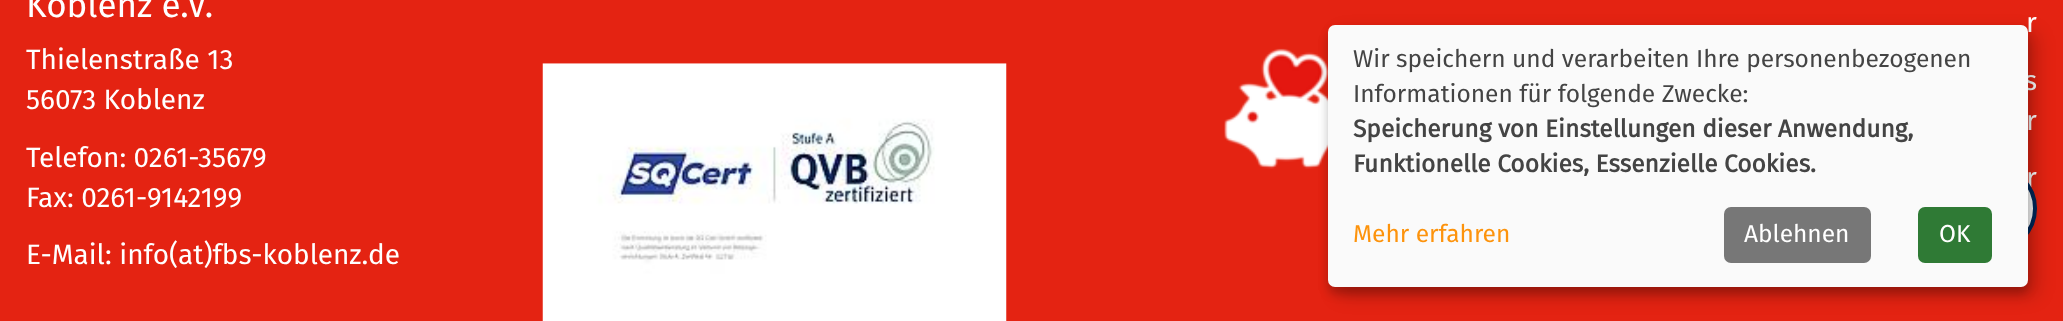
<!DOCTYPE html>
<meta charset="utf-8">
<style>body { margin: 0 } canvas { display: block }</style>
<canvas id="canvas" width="2063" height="321"></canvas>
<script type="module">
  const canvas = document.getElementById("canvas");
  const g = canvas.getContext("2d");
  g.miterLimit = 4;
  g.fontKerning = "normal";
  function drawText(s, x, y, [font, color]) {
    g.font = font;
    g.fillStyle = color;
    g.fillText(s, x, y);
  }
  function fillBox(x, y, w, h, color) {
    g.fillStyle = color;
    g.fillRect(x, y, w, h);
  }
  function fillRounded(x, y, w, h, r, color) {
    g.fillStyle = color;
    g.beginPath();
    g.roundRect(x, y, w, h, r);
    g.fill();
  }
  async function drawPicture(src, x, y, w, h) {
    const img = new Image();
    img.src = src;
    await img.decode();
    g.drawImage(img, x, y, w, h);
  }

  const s1 = ["35px Fira Sans", "#FFFFFF"];
  const s2 = ["28px Fira Sans", "#FFFFFF"];
  const s3 = ["24.5px Fira Sans", "#444444"];
  const s4 = ["bold 24.5px Fira Sans", "#444444"];
  const s5 = ["24.5px Fira Sans", "#FD930C"];
  const s6 = ["24.5px Fira Sans", "#FFFFFF"];

  fillBox(0, 0, 2063, 321, "#E42312");
  drawText("Koblenz e.V.", 26, 17, s1);
  drawText("Thielenstraße 13", 26, 69, s2);
  drawText("56073 Koblenz", 26, 109, s2);
  drawText("Telefon: 0261-35679", 26, 167, s2);
  drawText("Fax: 0261-9142199", 26, 207, s2);
  drawText("E-Mail: info(at)fbs-koblenz.de", 26, 264, s2);
  await drawPicture("pic1.png", 542, 63, 465, 258);
  await drawPicture("pic2.png", 1224, 48, 104, 121);
  drawText("r", 2026, 32, s2);
  drawText("s", 2024, 90, s2);
  drawText("r", 2026, 130, s2);
  drawText("r", 2026, 187, s2);
  g.beginPath();
  g.arc(1993.5, 208.5, 41.5, 0, Math.PI * 2);
  g.fill();
  g.strokeStyle = "#00285A";
  g.lineWidth = 4;
  g.stroke();
  g.fillStyle = "rgba(0, 0, 0, 0.19)";
  g.filter = "blur(9px)";
  g.beginPath();
  g.roundRect(1337, 33, 700, 263, 7);
  g.fill();
  g.filter = "none";
  g.fillStyle = "rgba(0, 0, 0, 0.2)";
  g.filter = "blur(5px)";
  g.beginPath();
  g.roundRect(1328, 32, 700, 262, 7);
  g.fill();
  g.filter = "none";
  fillRounded(1328, 25, 700, 262, 7, "#FAFAFA");
  drawText("Wir speichern und verarbeiten Ihre personenbezogenen", 1353, 67, s3);
  drawText("Informationen für folgende Zwecke:", 1353, 102, s3);
  drawText("Speicherung von Einstellungen dieser Anwendung,", 1353, 137, s4);
  drawText("Funktionelle Cookies, Essenzielle Cookies.", 1353, 172, s4);
  drawText("Mehr erfahren", 1353, 242, s5);
  fillRounded(1724, 207, 147, 56, 7, "#777777");
  drawText("Ablehnen", 1744, 242, s6);
  fillRounded(1918, 207, 74, 56, 7, "#2F7A35");
  drawText("OK", 1939, 242, s6);
</script>
